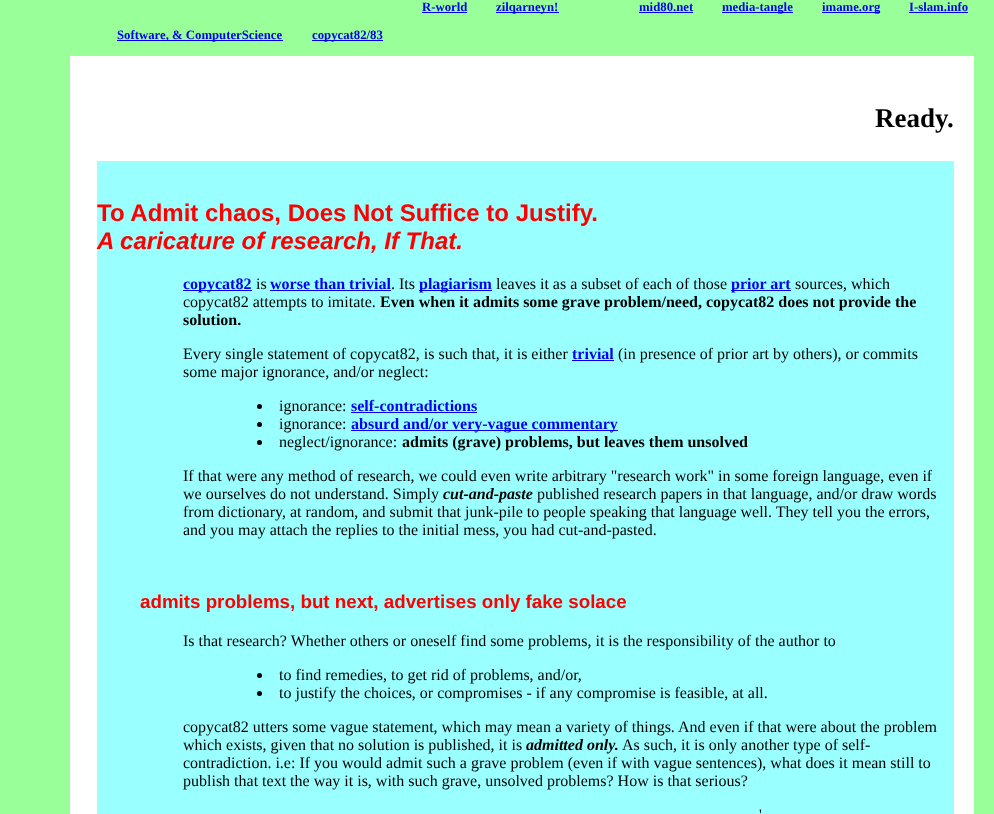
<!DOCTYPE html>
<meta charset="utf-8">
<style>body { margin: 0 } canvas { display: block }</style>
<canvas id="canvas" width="994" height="814"></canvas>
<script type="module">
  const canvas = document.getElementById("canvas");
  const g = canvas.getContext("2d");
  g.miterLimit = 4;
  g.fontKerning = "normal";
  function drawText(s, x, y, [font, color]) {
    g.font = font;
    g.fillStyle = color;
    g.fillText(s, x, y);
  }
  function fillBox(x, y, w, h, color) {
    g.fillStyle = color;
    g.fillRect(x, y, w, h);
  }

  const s1 = ["bold 12.75px Liberation Serif", "#0000EE"];
  const s2 = ["bold 27px Liberation Serif", "#000000"];
  const s3 = ["bold 24px Liberation Sans", "#FF0000"];
  const s4 = ["italic bold 24px Liberation Sans", "#FF0000"];
  const s5 = ["bold 16px Liberation Serif", "#0000EE"];
  const s6 = ["16px Liberation Serif", "#000000"];
  const s7 = ["bold 16px Liberation Serif", "#000000"];
  const s8 = ["italic bold 16px Liberation Serif", "#000000"];
  const s9 = ["bold 18.75px Liberation Sans", "#FF0000"];

  fillBox(0, 0, 994, 814, "#99FF99");
  drawText("R-world", 422, 11, s1);
  fillBox(422, 12, 45, 1, "#0000EE");
  fillBox(496, 12, 63, 1, "#0000EE");
  drawText("zilqarneyn!", 496, 11, s1);
  drawText("mid80.net", 639, 11, s1);
  fillBox(639, 12, 54, 1, "#0000EE");
  fillBox(722, 12, 71, 1, "#0000EE");
  drawText("media-tangle", 722, 11, s1);
  fillBox(822, 12, 58, 1, "#0000EE");
  drawText("imame.org", 822, 11, s1);
  drawText("I-slam.info", 909, 11, s1);
  fillBox(909, 12, 59, 1, "#0000EE");
  fillBox(117, 40, 166, 1, "#0000EE");
  drawText("Software, & ComputerScience", 117, 39, s1);
  fillBox(312, 40, 71, 1, "#0000EE");
  drawText("copycat82/83", 312, 39, s1);
  fillBox(70, 56, 904, 758, "#FFFFFF");
  drawText("Ready.", 875, 127, s2);
  fillBox(97, 161, 857, 653, "#99FFFF");
  drawText("To Admit chaos, Does Not Suffice to Justify.", 97, 221, s3);
  drawText("A caricature of research, If That.", 97, 249, s4);
  fillBox(183, 290, 69, 1, "#0000EE");
  drawText("copycat82", 183, 289, s5);
  drawText("is", 256, 289, s6);
  drawText("worse than trivial", 270, 289, s5);
  fillBox(270, 290, 121, 1, "#0000EE");
  drawText(". Its", 391, 289, s6);
  fillBox(419, 290, 73, 1, "#0000EE");
  drawText("plagiarism", 419, 289, s5);
  drawText("leaves it as a subset of each of those", 496, 289, s6);
  fillBox(731, 290, 60, 1, "#0000EE");
  drawText("prior art", 731, 289, s5);
  drawText("sources, which", 795, 289, s6);
  drawText("copycat82 attempts to imitate.", 183, 307, s6);
  drawText("Even when it admits some grave problem/need, copycat82 does not provide the", 380, 307, s7);
  drawText("solution.", 183, 325, s7);
  drawText("Every single statement of copycat82, is such that, it is either", 183, 359, s6);
  drawText("trivial", 572, 359, s5);
  fillBox(572, 360, 42, 1, "#0000EE");
  drawText("(in presence of prior art by others), or commits", 618, 359, s6);
  drawText("some major ignorance, and/or neglect:", 183, 377, s6);
  g.beginPath();
  g.arc(259.5, 406.5, 2.5, 0, Math.PI * 2);
  g.fill();
  drawText("ignorance:", 279, 411, s6);
  drawText("self-contradictions", 351, 411, s5);
  fillBox(351, 412, 126, 1, "#0000EE");
  g.fillStyle = "#000000";
  g.beginPath();
  g.arc(259.5, 424.5, 2.5, 0, Math.PI * 2);
  g.fill();
  drawText("ignorance:", 279, 429, s6);
  fillBox(351, 430, 267, 1, "#0000EE");
  drawText("absurd and/or very-vague commentary", 351, 429, s5);
  g.fillStyle = "#000000";
  g.beginPath();
  g.arc(259.5, 442.5, 2.5, 0, Math.PI * 2);
  g.fill();
  drawText("neglect/ignorance:", 279, 447, s6);
  drawText("admits (grave) problems, but leaves them unsolved", 402, 447, s7);
  drawText("If that were any method of research, we could even write arbitrary \"research work\" in some foreign language, even if", 183, 481, s6);
  drawText("we ourselves do not understand. Simply", 183, 499, s6);
  drawText("cut-and-paste", 443, 499, s8);
  drawText("published research papers in that language, and/or draw words", 537, 499, s6);
  drawText("from dictionary, at random, and submit that junk-pile to people speaking that language well. They tell you the errors,", 183, 517, s6);
  drawText("and you may attach the replies to the initial mess, you had cut-and-pasted.", 183, 535, s6);
  drawText("admits problems, but next, advertises only fake solace", 140, 608, s9);
  drawText("Is that research? Whether others or oneself find some problems, it is the responsibility of the author to", 183, 646, s6);
  g.beginPath();
  g.arc(259.5, 675.5, 2.5, 0, Math.PI * 2);
  g.fill();
  drawText("to find remedies, to get rid of problems, and/or,", 279, 680, s6);
  g.beginPath();
  g.arc(259.5, 693.5, 2.5, 0, Math.PI * 2);
  g.fill();
  drawText("to justify the choices, or compromises - if any compromise is feasible, at all.", 279, 698, s6);
  drawText("copycat82 utters some vague statement, which may mean a variety of things. And even if that were about the problem", 183, 732, s6);
  drawText("which exists, given that no solution is published, it is", 183, 750, s6);
  drawText("admitted only.", 526, 750, s8);
  drawText("As such, it is only another type of self-", 622, 750, s6);
  drawText("contradiction. i.e: If you would admit such a grave problem (even if with vague sentences), what does it mean still to", 183, 768, s6);
  drawText("publish that text the way it is, with such grave, unsolved problems? How is that serious?", 183, 786, s6);
  drawText("'", 759, 820, s6);
</script>
